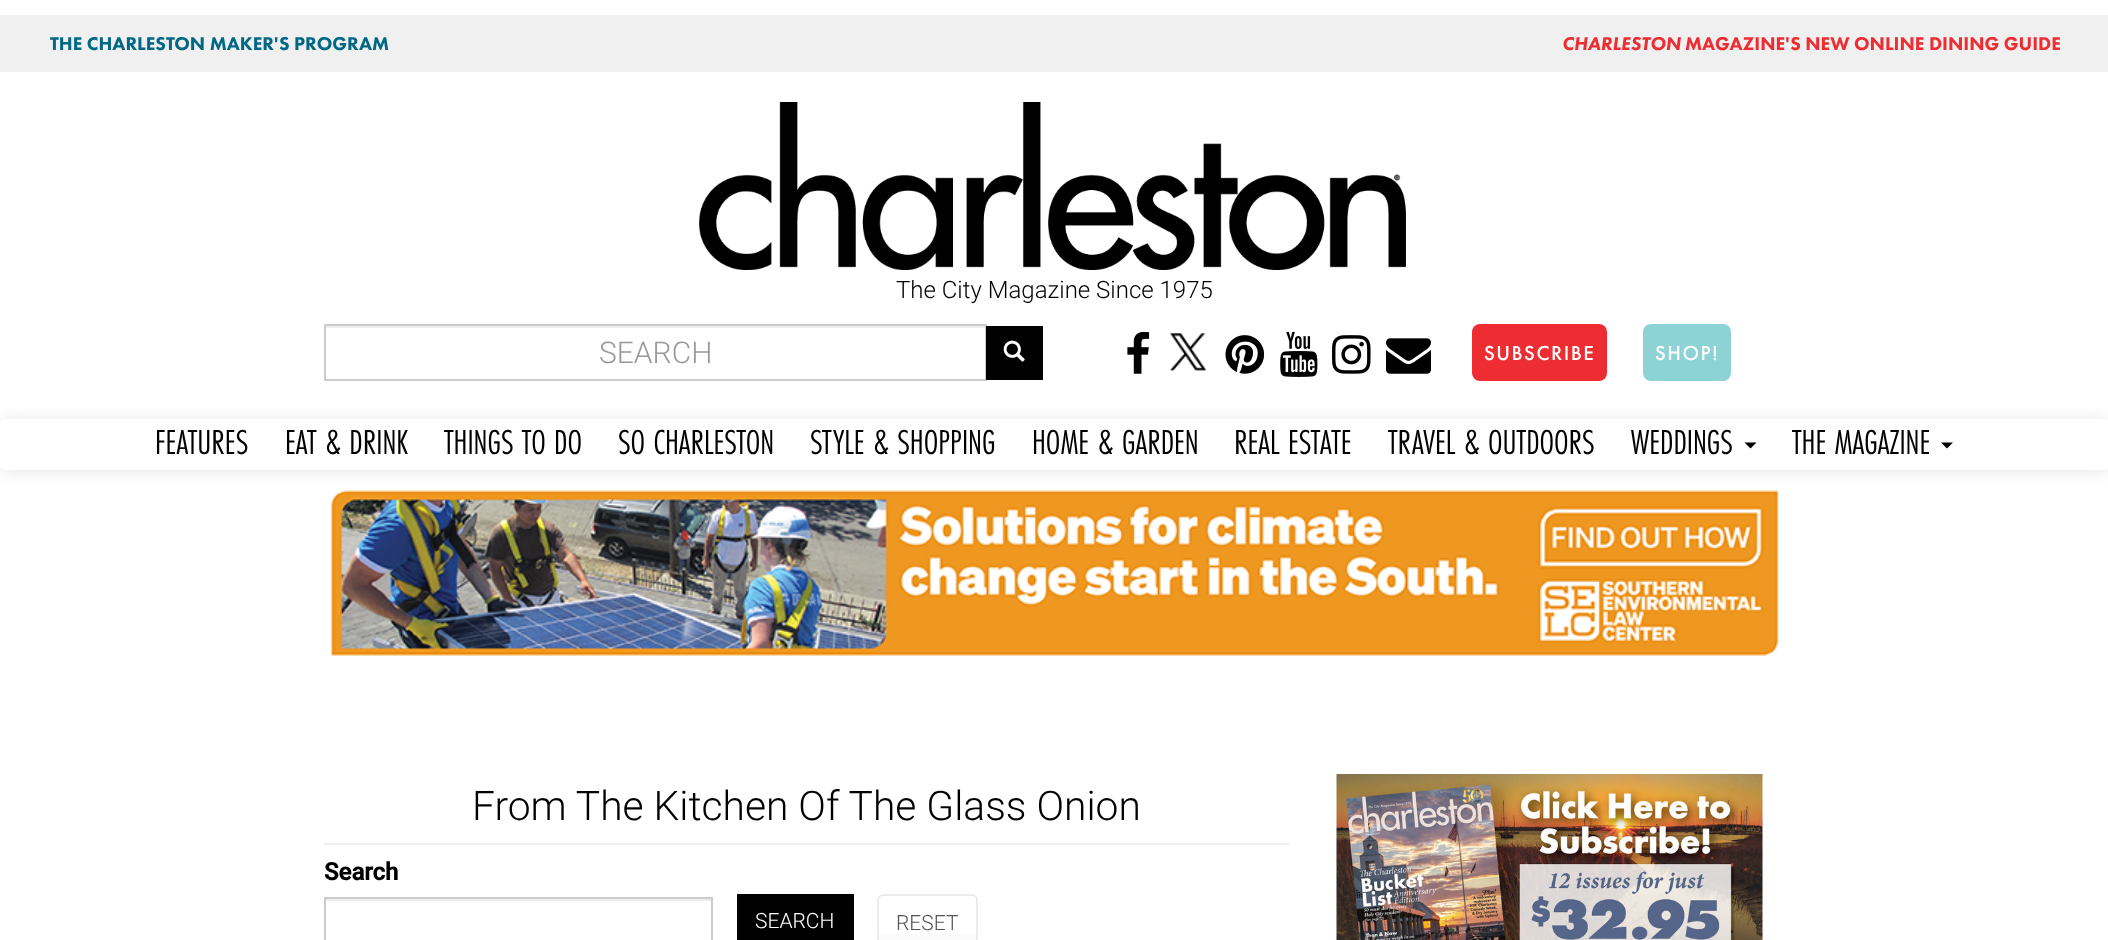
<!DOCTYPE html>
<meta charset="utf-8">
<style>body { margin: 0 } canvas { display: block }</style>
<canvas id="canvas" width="2108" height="940"></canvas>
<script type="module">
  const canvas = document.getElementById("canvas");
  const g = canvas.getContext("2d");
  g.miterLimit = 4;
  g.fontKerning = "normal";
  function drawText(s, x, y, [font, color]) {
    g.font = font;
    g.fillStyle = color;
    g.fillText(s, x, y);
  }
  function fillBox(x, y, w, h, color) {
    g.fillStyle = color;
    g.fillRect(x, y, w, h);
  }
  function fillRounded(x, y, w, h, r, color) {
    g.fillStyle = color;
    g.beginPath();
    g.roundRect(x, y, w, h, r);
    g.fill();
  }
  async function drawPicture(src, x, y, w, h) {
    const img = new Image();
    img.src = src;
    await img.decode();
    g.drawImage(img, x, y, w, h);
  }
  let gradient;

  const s1 = ["900 19.25px Futura PT", "#006884"];
  const s2 = ["italic 900 19.25px Futura PT", "#EE2D32"];
  const s3 = ["900 19.25px Futura PT", "#EE2D32"];
  const s4 = ["300 24px Roboto", "#000000"];
  const s5 = ["300 30px Roboto", "#999999"];
  const s6 = ["500 21px Futura PT", "#FFFFFF"];
  const s7 = ["36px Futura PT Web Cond", "#000000"];
  const s8 = ["300 40.75px Roboto", "#000000"];
  const s9 = ["bold 24px Roboto", "#000000"];
  const s10 = ["300 21px Roboto", "#FFFFFF"];
  const s11 = ["300 21px Roboto", "#555555"];

  fillBox(0, 0, 2108, 940, "#FFFFFF");
  fillBox(0, 15, 2108, 57, "#F0F0F0");
  drawText("THE CHARLESTON MAKER'S PROGRAM", 50, 50, s1);
  drawText("CHARLESTON", 1562, 50, s2);
  drawText("MAGAZINE'S NEW ONLINE DINING GUIDE", 1685, 50, s3);
  await drawPicture("pic1.png", 699, 102, 707, 168);
  drawText("The City Magazine Since 1975", 896, 298, s4);
  fillBox(326, 326, 660, 2, "#ECECEC");
  g.strokeStyle = "#CCCCCC";
  g.lineWidth = 2;
  g.strokeRect(325, 325, 661, 55);
  drawText("SEARCH", 599, 363, s5);
  fillBox(986, 326, 57, 54, "#000000");
  await drawPicture("pic2.png", 1003, 340, 22, 22);
  await drawPicture("pic3.png", 1127, 331, 23, 43);
  await drawPicture("pic4.png", 1170, 333, 36, 38);
  await drawPicture("pic5.png", 1225, 335, 40, 39);
  await drawPicture("pic6.png", 1280, 331, 38, 46);
  await drawPicture("pic7.png", 1332, 335, 39, 39);
  await drawPicture("pic8.png", 1386, 338, 45, 36);
  fillRounded(1472, 324, 135, 57, 8, "#EE2D32");
  g.letterSpacing = "1.5px";
  drawText("SUBSCRIBE", 1484, 360, s6);
  fillRounded(1643, 324, 88, 57, 8, "#8DD3D5");
  drawText("SHOP!", 1655, 360, s6);
  g.save();
  g.beginPath();
  g.moveTo(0, 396);
  g.lineTo(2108, 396);
  g.lineTo(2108, 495);
  g.lineTo(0, 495);
  g.closePath();
  g.moveTo(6, 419);
  g.lineTo(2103, 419);
  g.bezierCurveTo(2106.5, 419, 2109, 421.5, 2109, 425);
  g.lineTo(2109, 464);
  g.bezierCurveTo(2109, 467.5, 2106.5, 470, 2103, 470);
  g.lineTo(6, 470);
  g.bezierCurveTo(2.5, 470, 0, 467.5, 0, 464);
  g.lineTo(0, 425);
  g.bezierCurveTo(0, 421.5, 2.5, 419, 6, 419);
  g.closePath();
  g.clip("evenodd");
  g.fillStyle = "rgba(0, 0, 0, 0.1)";
  g.filter = "blur(7.5px)";
  g.beginPath();
  g.roundRect(0, 420, 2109, 51, 6);
  g.fill();
  g.filter = "none";
  g.restore();
  fillBox(3, 469, 2103, 1, "#FFFFFF");
  g.letterSpacing = "0px";
  drawText("FEATURES", 155, 454, s7);
  drawText("EAT & DRINK", 285, 454, s7);
  drawText("THINGS TO DO", 444, 454, s7);
  drawText("SO CHARLESTON", 618, 454, s7);
  drawText("STYLE & SHOPPING", 810, 454, s7);
  drawText("HOME & GARDEN", 1032, 454, s7);
  drawText("REAL ESTATE", 1234, 454, s7);
  drawText("TRAVEL & OUTDOORS", 1388, 454, s7);
  drawText("WEDDINGS", 1631, 454, s7);
  g.beginPath();
  g.moveTo(1744.5, 442.5);
  g.lineTo(1756.5, 442.5);
  g.lineTo(1750.5, 448.5);
  g.closePath();
  g.fill();
  drawText("THE MAGAZINE", 1792, 454, s7);
  g.beginPath();
  g.moveTo(1941, 442.5);
  g.lineTo(1953, 442.5);
  g.lineTo(1947, 448.5);
  g.closePath();
  g.fill();
  await drawPicture("pic9.png", 331, 490, 1449, 166);
  fillBox(324, 843, 966, 2, "#EEEEEE");
  drawText("From The Kitchen Of The Glass Onion", 472, 820, s8);
  drawText("Search", 324, 880, s9);
  fillBox(326, 899, 385, 2, "#ECECEC");
  g.strokeRect(325, 898, 387, 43);
  fillBox(737, 894, 117, 46, "#000000");
  drawText("SEARCH", 755, 928, s10);
  gradient = g.createLinearGradient(928, 896, 928, 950);
  gradient.addColorStop(0, "#FFFFFF");
  gradient.addColorStop(0.6, "#FFFFFF");
  gradient.addColorStop(1, "#F5F5F5");
  g.fillStyle = gradient;
  g.fillRect(879, 934, 98, 6);
  g.beginPath();
  g.moveTo(880, 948.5);
  g.bezierCurveTo(879, 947.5, 878, 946.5, 878, 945);
  g.lineTo(878, 900);
  g.bezierCurveTo(878, 898.5, 879, 897.5, 880, 896.5);
  g.bezierCurveTo(881, 895.5, 882, 895, 883.5, 895);
  g.lineTo(972, 895);
  g.bezierCurveTo(973.5, 895, 974.5, 895.5, 975.5, 896.5);
  g.bezierCurveTo(976.5, 897.5, 977, 898.5, 977, 900);
  g.lineTo(977, 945);
  g.bezierCurveTo(977, 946.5, 976.5, 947.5, 975.5, 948.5);
  g.strokeStyle = "rgba(0, 0, 0, 0.1)";
  g.lineWidth = 1.5;
  g.stroke();
  drawText("RESET", 896, 930, s11);
  await drawPicture("pic10.png", 1336, 774, 427, 166);
</script>
